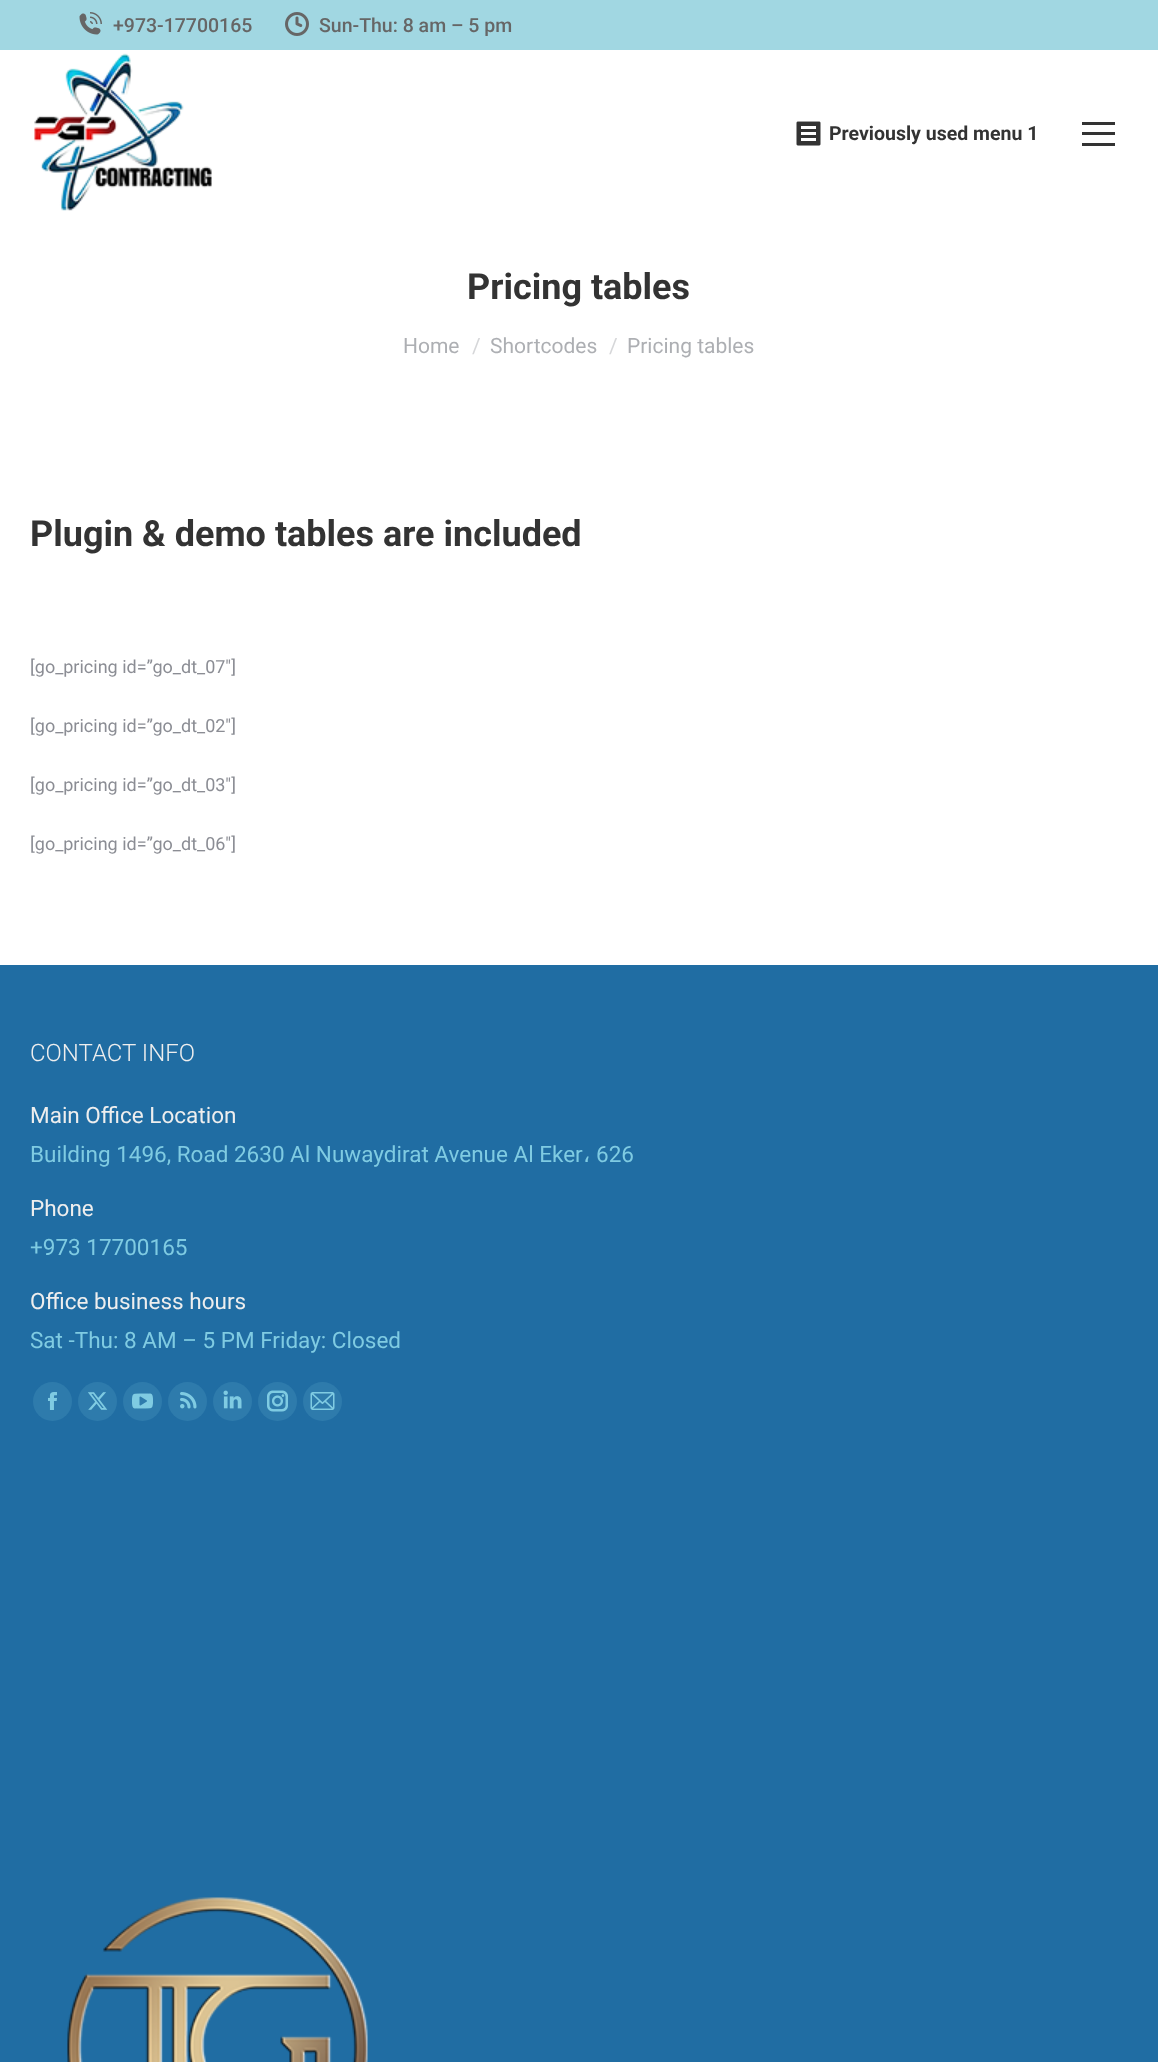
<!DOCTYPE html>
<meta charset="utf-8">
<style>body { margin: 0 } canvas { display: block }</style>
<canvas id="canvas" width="1158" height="2062"></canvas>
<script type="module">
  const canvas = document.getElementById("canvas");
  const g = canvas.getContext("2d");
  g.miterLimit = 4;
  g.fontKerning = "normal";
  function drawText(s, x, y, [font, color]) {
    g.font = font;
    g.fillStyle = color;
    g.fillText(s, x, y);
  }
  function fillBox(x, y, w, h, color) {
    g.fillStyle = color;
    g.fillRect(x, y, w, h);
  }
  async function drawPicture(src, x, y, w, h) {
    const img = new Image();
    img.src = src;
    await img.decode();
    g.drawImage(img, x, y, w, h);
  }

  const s1 = ["500 19.5px Roboto", "#666666"];
  const s2 = ["bold 19.5px Roboto", "#333333"];
  const s3 = ["bold 36px Roboto", "#333333"];
  const s4 = ["21px Roboto", "#ADAFB3"];
  const s5 = ["21px Roboto", "#D6D7D9"];
  const s6 = ["18px Roboto", "#8B8D94"];
  const s7 = ["300 24px Roboto", "#EEEEEE"];
  const s8 = ["22.5px Roboto", "#EEEEEE"];
  const s9 = ["22.5px Roboto", "#7FCBE2"];
  const s10 = ["22.5px DejaVu Sans", "#7FCBE2"];

  fillBox(0, 0, 1158, 2062, "#FFFFFF");
  fillBox(0, 0, 1158, 50, "#A1D7E2");
  await drawPicture("pic1.png", 79, 12, 23, 23);
  drawText("+973-17700165", 113, 32, s1);
  await drawPicture("pic2.png", 285, 12, 24, 24);
  drawText("Sun-Thu: 8 am – 5 pm", 319, 32, s1);
  await drawPicture("pic3.png", 34, 53, 178, 158);
  await drawPicture("pic4.png", 796, 121, 25, 25);
  drawText("Previously used menu 1", 829, 140, s2);
  fillBox(1082, 122, 33, 3, "#333333");
  fillBox(1082, 132, 33, 3, "#333333");
  fillBox(1082, 143, 33, 3, "#333333");
  drawText("Pricing tables", 467, 299, s3);
  drawText("Home", 403, 353, s4);
  drawText("/", 472, 353, s5);
  drawText("Shortcodes", 490, 353, s4);
  drawText("/", 609, 353, s5);
  drawText("Pricing tables", 627, 353, s4);
  drawText("Plugin & demo tables are included", 30, 546, s3);
  drawText("[go_pricing id=”go_dt_07″]", 30, 673, s6);
  drawText("[go_pricing id=”go_dt_02″]", 30, 732, s6);
  drawText("[go_pricing id=”go_dt_03″]", 30, 791, s6);
  drawText("[go_pricing id=”go_dt_06″]", 30, 850, s6);
  fillBox(0, 965, 1158, 1097, "#206DA3");
  drawText("CONTACT INFO", 30, 1061, s7);
  drawText("Main Office Location", 30, 1123, s8);
  drawText("Building 1496, Road 2630 Al Nuwaydirat Avenue Al Eker", 30, 1162, s9);
  drawText("،", 583, 1162, s10);
  drawText("626", 596, 1162, s9);
  drawText("Phone", 30, 1216, s8);
  drawText("+973 17700165", 30, 1255, s9);
  drawText("Office business hours", 30, 1309, s8);
  drawText("Sat -Thu: 8 AM – 5 PM Friday: Closed", 30, 1348, s9);
  g.fillStyle = "#2E7BAC";
  g.beginPath();
  g.arc(52.5, 1401.5, 19.5, 0, Math.PI * 2);
  g.fill();
  await drawPicture("pic5.png", 48, 1392, 9, 18);
  g.beginPath();
  g.arc(97.5, 1401.5, 19.5, 0, Math.PI * 2);
  g.fill();
  await drawPicture("pic6.png", 88, 1392, 20, 18);
  g.beginPath();
  g.arc(142.5, 1401.5, 19.5, 0, Math.PI * 2);
  g.fill();
  await drawPicture("pic7.png", 132, 1393, 21, 16);
  g.beginPath();
  g.arc(187.5, 1401.5, 19.5, 0, Math.PI * 2);
  g.fill();
  await drawPicture("pic8.png", 180, 1392, 17, 17);
  g.beginPath();
  g.arc(232.5, 1401.5, 19.5, 0, Math.PI * 2);
  g.fill();
  await drawPicture("pic9.png", 223, 1390, 19, 19);
  g.beginPath();
  g.arc(277.5, 1401.5, 19.5, 0, Math.PI * 2);
  g.fill();
  await drawPicture("pic10.png", 267, 1390, 21, 22);
  g.beginPath();
  g.arc(322.5, 1401.5, 19.5, 0, Math.PI * 2);
  g.fill();
  await drawPicture("pic11.png", 310, 1392, 25, 18);
  await drawPicture("pic12.png", 67, 1897, 301, 165);
</script>
